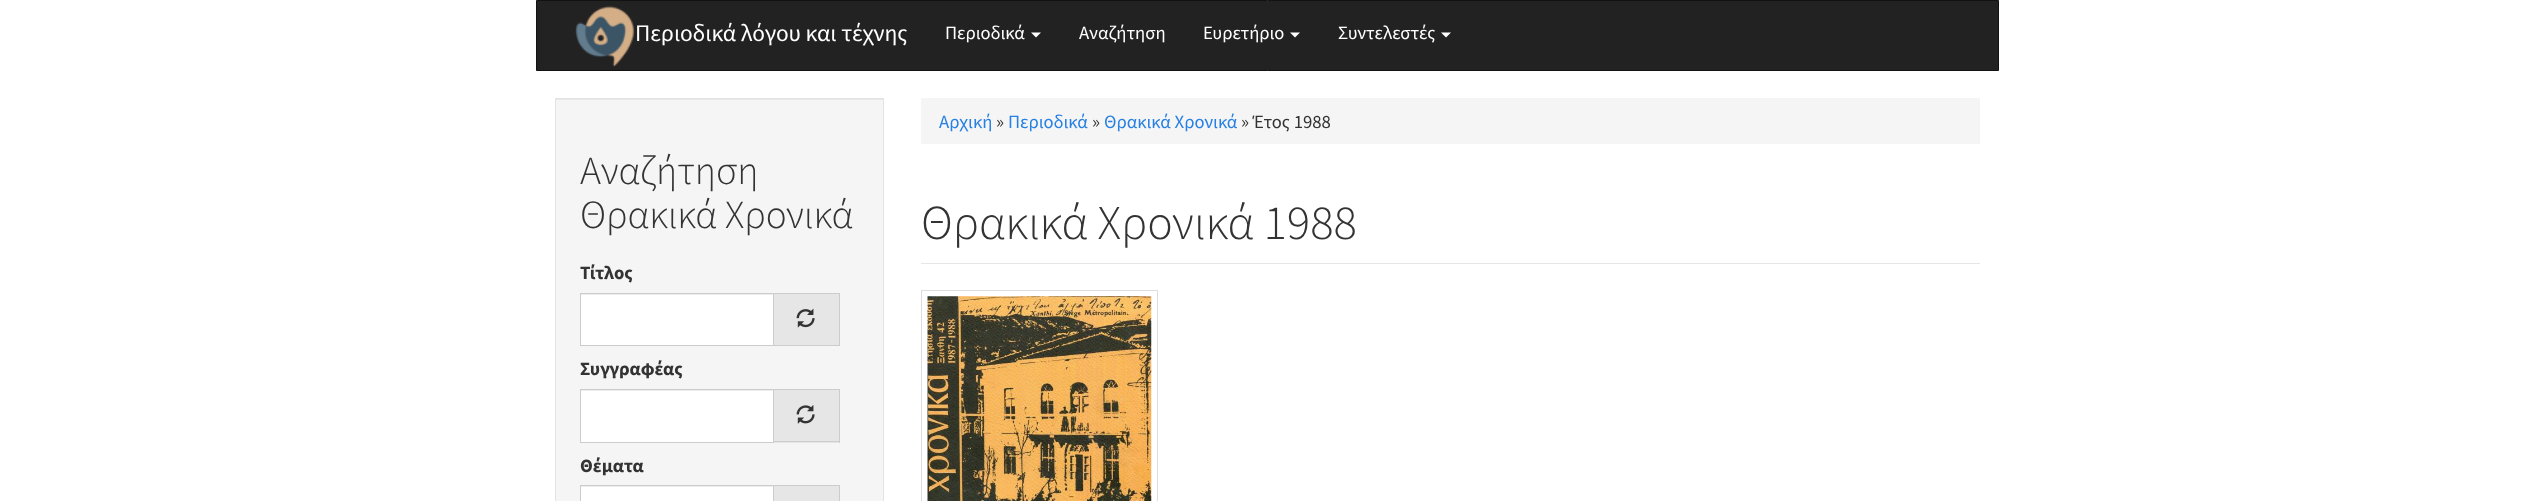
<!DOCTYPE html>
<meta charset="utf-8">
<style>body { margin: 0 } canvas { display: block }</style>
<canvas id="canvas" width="2535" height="501"></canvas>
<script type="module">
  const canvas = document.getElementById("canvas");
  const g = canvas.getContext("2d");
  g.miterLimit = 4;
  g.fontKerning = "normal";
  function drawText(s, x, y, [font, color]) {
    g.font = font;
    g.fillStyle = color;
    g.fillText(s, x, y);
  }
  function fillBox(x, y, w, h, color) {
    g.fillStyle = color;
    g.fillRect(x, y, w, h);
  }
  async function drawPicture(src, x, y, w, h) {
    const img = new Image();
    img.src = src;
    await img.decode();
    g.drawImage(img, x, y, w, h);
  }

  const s1 = ["23.75px Source Sans Pro", "#FFFFFF"];
  const s2 = ["18.75px Source Sans Pro", "#FFFFFF"];
  const s3 = ["300 40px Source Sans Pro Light", "#333333"];
  const s4 = ["bold 18.75px Source Sans Pro", "#333333"];
  const s5 = ["18.75px Source Sans Pro", "#2780E3"];
  const s6 = ["18.75px Source Sans Pro", "#333333"];
  const s7 = ["300 48.75px Source Sans Pro Light", "#333333"];

  fillBox(0, 0, 2535, 501, "#FFFFFF");
  g.fillStyle = "#222222";
  g.beginPath();
  g.rect(536.5, 0.5, 1462, 70);
  g.fill();
  g.strokeStyle = "#121212";
  g.stroke();
  await drawPicture("pic1.png", 575, 6, 60, 61);
  drawText("Περιοδικά λόγου και τέχνης", 635, 41, s1);
  drawText("Περιοδικά", 945, 39, s2);
  g.beginPath();
  g.moveTo(1031, 32.5);
  g.lineTo(1041, 32.5);
  g.lineTo(1036, 37.5);
  g.closePath();
  g.fill();
  drawText("Αναζήτηση", 1079, 39, s2);
  drawText("Ευρετήριο", 1203, 39, s2);
  g.beginPath();
  g.moveTo(1290, 32.5);
  g.lineTo(1300, 32.5);
  g.lineTo(1295, 37.5);
  g.closePath();
  g.fill();
  drawText("Συντελεστές", 1338, 39, s2);
  g.beginPath();
  g.moveTo(1441, 32.5);
  g.lineTo(1451, 32.5);
  g.lineTo(1446, 37.5);
  g.closePath();
  g.fill();
  fillBox(556, 100, 327, 401, "#F5F5F5");
  fillBox(556, 99, 327, 1, "#E9E9E9");
  g.strokeStyle = "#E3E3E3";
  g.strokeRect(555.5, 98.5, 328, 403);
  drawText("Αναζήτηση", 580, 184, s3);
  drawText("Θρακικά Χρονικά", 580, 228, s3);
  drawText("Τίτλος", 580, 279, s4);
  fillBox(581, 295, 192, 50, "#FFFFFF");
  fillBox(581, 294, 192, 1, "#ECECEC");
  g.strokeStyle = "#CCCCCC";
  g.strokeRect(580.5, 293.5, 193, 52);
  fillBox(774, 294, 65, 51, "#E6E6E6");
  fillBox(774, 293, 66, 1, "#CCCCCC");
  fillBox(839, 293, 1, 53, "#CCCCCC");
  fillBox(774, 345, 66, 1, "#CCCCCC");
  await drawPicture("pic2.png", 796, 308, 19, 20);
  drawText("Συγγραφέας", 580, 375, s4);
  fillBox(581, 391, 192, 51, "#FFFFFF");
  fillBox(581, 390, 192, 1, "#ECECEC");
  g.strokeRect(580.5, 389.5, 193, 53);
  fillBox(774, 390, 65, 53, "#E6E6E6");
  fillBox(774, 389, 66, 1, "#CCCCCC");
  fillBox(839, 389, 1, 54, "#CCCCCC");
  fillBox(774, 441, 66, 1, "#CCCCCC");
  await drawPicture("pic3.png", 796, 405, 19, 19);
  drawText("Θέματα", 580, 472, s4);
  fillBox(581, 487, 192, 14, "#FFFFFF");
  fillBox(581, 486, 192, 1, "#ECECEC");
  g.strokeRect(580.5, 485.5, 193, 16);
  fillBox(774, 486, 65, 15, "#E6E6E6");
  fillBox(774, 485, 66, 1, "#CCCCCC");
  fillBox(839, 485, 1, 16, "#CCCCCC");
  fillBox(921, 98, 1059, 46, "#F5F5F5");
  drawText("Αρχική", 939, 128, s5);
  drawText("»", 996, 128, s6);
  drawText("Περιοδικά", 1008, 128, s5);
  drawText("»", 1092, 128, s6);
  drawText("Θρακικά Χρονικά", 1104, 128, s5);
  drawText("» Έτος 1988", 1241, 128, s6);
  fillBox(921, 263, 1059, 1, "#E6E6E6");
  drawText("Θρακικά Χρονικά 1988", 921, 239, s7);
  g.strokeStyle = "#DDDDDD";
  g.strokeRect(921.5, 290.5, 236, 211);
  await drawPicture("pic4.png", 927, 296, 225, 205);
</script>
